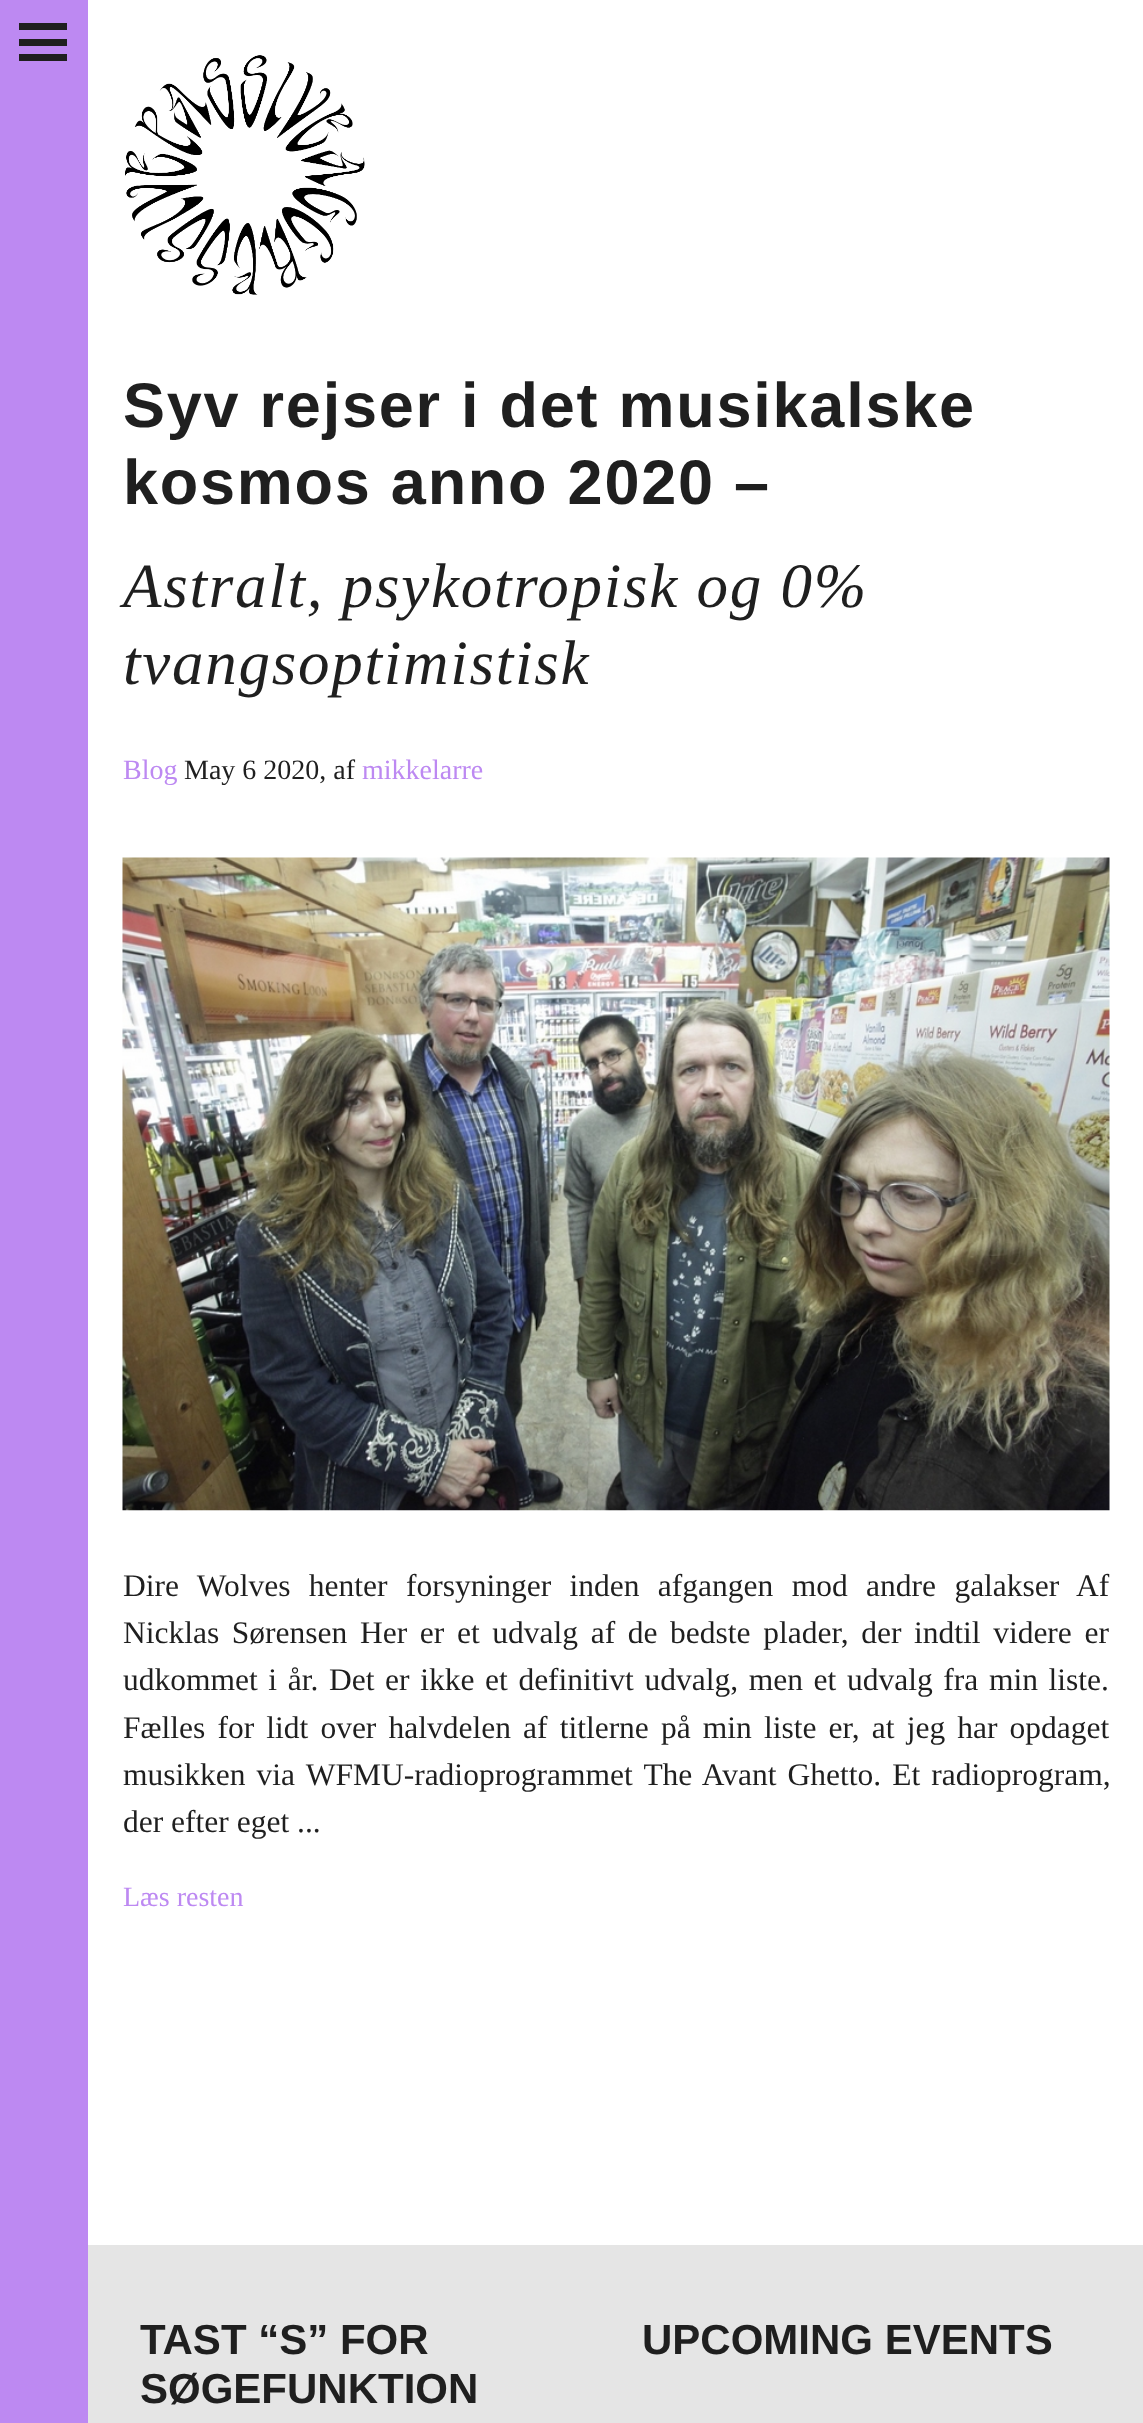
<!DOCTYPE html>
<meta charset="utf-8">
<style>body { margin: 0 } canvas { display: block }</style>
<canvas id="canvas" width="1143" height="2423"></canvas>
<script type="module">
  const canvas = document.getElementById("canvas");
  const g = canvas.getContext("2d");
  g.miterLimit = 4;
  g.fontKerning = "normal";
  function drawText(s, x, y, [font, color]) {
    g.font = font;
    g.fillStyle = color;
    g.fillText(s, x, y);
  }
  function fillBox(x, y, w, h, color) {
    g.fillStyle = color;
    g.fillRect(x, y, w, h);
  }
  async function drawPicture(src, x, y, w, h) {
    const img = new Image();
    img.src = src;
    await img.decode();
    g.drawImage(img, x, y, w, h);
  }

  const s1 = ["bold 63px Liberation Sans", "#1F1F1F"];
  const s2 = ["italic 63px Liberation Serif", "#1F1F1F"];
  const s3 = ["28px Liberation Serif", "#BD89F2"];
  const s4 = ["28px Liberation Serif", "#1F1F1F"];
  const s5 = ["31.5px Liberation Serif", "#1F1F1F"];
  const s6 = ["bold 42px Liberation Sans", "#1F1F1F"];

  fillBox(0, 0, 1143, 2423, "#FFFFFF");
  fillBox(0, 0, 88, 2423, "#BD89F2");
  fillBox(19, 39, 48, 7, "#1F1F1F");
  fillBox(19, 23, 48, 7, "#1F1F1F");
  fillBox(19, 54, 48, 7, "#1F1F1F");
  await drawPicture("pic1.png", 125, 55, 240, 240);
  g.letterSpacing = "1.75px";
  drawText("Syv rejser i det musikalske", 123, 427, s1);
  drawText("kosmos anno 2020 –", 123, 504, s1);
  drawText("Astralt, psykotropisk og 0%", 123, 607, s2);
  drawText("tvangsoptimistisk", 123, 684, s2);
  g.letterSpacing = "0px";
  drawText("Blog", 123, 779, s3);
  drawText("May 6 2020, af", 184, 779, s4);
  drawText("mikkelarre", 362, 779, s3);
  await drawPicture("pic2.png", 122, 857, 988, 654);
  g.wordSpacing = "10.5px";
  drawText("Dire Wolves henter forsyninger inden afgangen mod andre galakser", 123, 1596, s5);
  g.wordSpacing = "0px";
  drawText("Af", 1076, 1596, s5);
  g.wordSpacing = "4.75px";
  drawText("Nicklas Sørensen", 123, 1643, s5);
  drawText("Her er et udvalg af de bedste plader, der indtil videre er", 360, 1643, s5);
  g.wordSpacing = "2.75px";
  drawText("udkommet i år. Det er ikke et definitivt udvalg, men et udvalg fra min liste.", 123, 1690, s5);
  g.wordSpacing = "4.25px";
  drawText("Fælles for lidt over halvdelen af titlerne på min liste er, at jeg har opdaget", 123, 1738, s5);
  g.wordSpacing = "3.25px";
  drawText("musikken via WFMU-radioprogrammet The Avant Ghetto. Et radioprogram,", 123, 1785, s5);
  g.wordSpacing = "0px";
  drawText("der efter eget ...", 123, 1832, s5);
  drawText("Læs resten", 123, 1906, s3);
  fillBox(88, 2245, 1055, 178, "#E5E5E5");
  drawText("TAST “S” FOR", 140, 2354, s6);
  drawText("SØGEFUNKTION", 140, 2403, s6);
  drawText("UPCOMING EVENTS", 642, 2354, s6);
</script>
